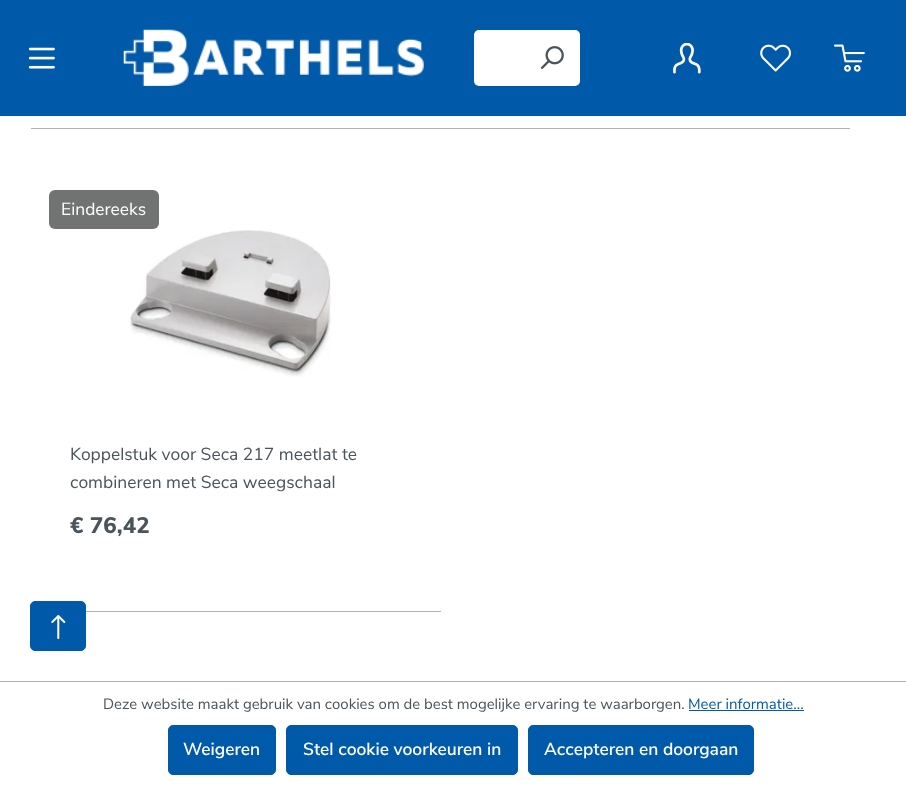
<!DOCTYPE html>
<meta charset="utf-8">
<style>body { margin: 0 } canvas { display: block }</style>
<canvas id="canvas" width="906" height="785"></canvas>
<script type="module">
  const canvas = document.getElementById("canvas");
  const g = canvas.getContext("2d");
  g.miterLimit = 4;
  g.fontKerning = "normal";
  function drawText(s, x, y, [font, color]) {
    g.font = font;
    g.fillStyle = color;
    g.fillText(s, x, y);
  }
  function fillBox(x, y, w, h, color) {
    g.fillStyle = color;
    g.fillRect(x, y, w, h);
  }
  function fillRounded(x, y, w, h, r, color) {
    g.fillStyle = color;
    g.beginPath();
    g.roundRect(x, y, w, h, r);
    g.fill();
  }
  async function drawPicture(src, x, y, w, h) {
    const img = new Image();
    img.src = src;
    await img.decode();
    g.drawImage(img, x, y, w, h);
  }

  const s1 = ["17.5px Nunito Sans", "#FFFFFF"];
  const s2 = ["17.5px Nunito Sans", "#4A545B"];
  const s3 = ["800 22.5px Nunito Sans", "#4A545B"];
  const s4 = ["15px Nunito Sans", "#4A545B"];
  const s5 = ["15px Nunito Sans", "#005AA9"];
  const s6 = ["600 17.5px Nunito Sans", "#FFFFFF"];

  fillBox(0, 0, 906, 785, "#FFFFFF");
  fillBox(0, 0, 906, 116, "#005AA9");
  await drawPicture("pic1.png", 28, 47, 27, 22);
  await drawPicture("pic2.png", 123, 29, 301, 57);
  g.fillStyle = "#FFFFFF";
  g.beginPath();
  g.roundRect(474, 30, 50, 56, [5, 0, 0, 5]);
  g.fill();
  g.beginPath();
  g.roundRect(523, 30, 57, 56, [0, 5, 5, 0]);
  g.fill();
  await drawPicture("pic3.png", 541, 46, 23, 23);
  await drawPicture("pic4.png", 673, 43, 28, 31);
  await drawPicture("pic5.png", 760, 44, 31, 28);
  await drawPicture("pic6.png", 834, 44, 31, 28);
  fillBox(31, 128, 819, 1, "#AFB0B3");
  fillBox(86, 611, 355, 1, "#AFB0B3");
  fillRounded(49, 190, 110, 39, 6, "#707372");
  drawText("Eindereeks", 61, 215, s1);
  await drawPicture("pic7.png", 129, 230, 203, 147);
  drawText("Koppelstuk voor Seca 217 meetlat te", 70, 460, s2);
  drawText("combineren met Seca weegschaal", 70, 488, s2);
  drawText("€ 76,42", 70, 533, s3);
  g.fillStyle = "#005AA9";
  g.beginPath();
  g.roundRect(30.5, 601.5, 55, 49, 4.5);
  g.fill();
  g.strokeStyle = "#005AA9";
  g.stroke();
  await drawPicture("pic8.png", 51, 615, 15, 24);
  fillBox(0, 681, 906, 1, "#B3B3B3");
  drawText("Deze website maakt gebruik van cookies om de best mogelijke ervaring te waarborgen.", 103, 709, s4);
  drawText("Meer informatie...", 688, 709, s5);
  fillBox(689, 710, 115, 1, "#005AA9");
  g.beginPath();
  g.roundRect(168.5, 725.5, 107, 49, 4.5);
  g.fill();
  g.stroke();
  drawText("Weigeren", 183, 755, s6);
  g.fillStyle = "#005AA9";
  g.beginPath();
  g.roundRect(286.5, 725.5, 231, 49, 4.5);
  g.fill();
  g.stroke();
  drawText("Stel cookie voorkeuren in", 303, 755, s6);
  g.fillStyle = "#005AA9";
  g.beginPath();
  g.roundRect(528.5, 725.5, 225, 49, 4.5);
  g.fill();
  g.stroke();
  drawText("Accepteren en doorgaan", 544, 755, s6);
</script>
